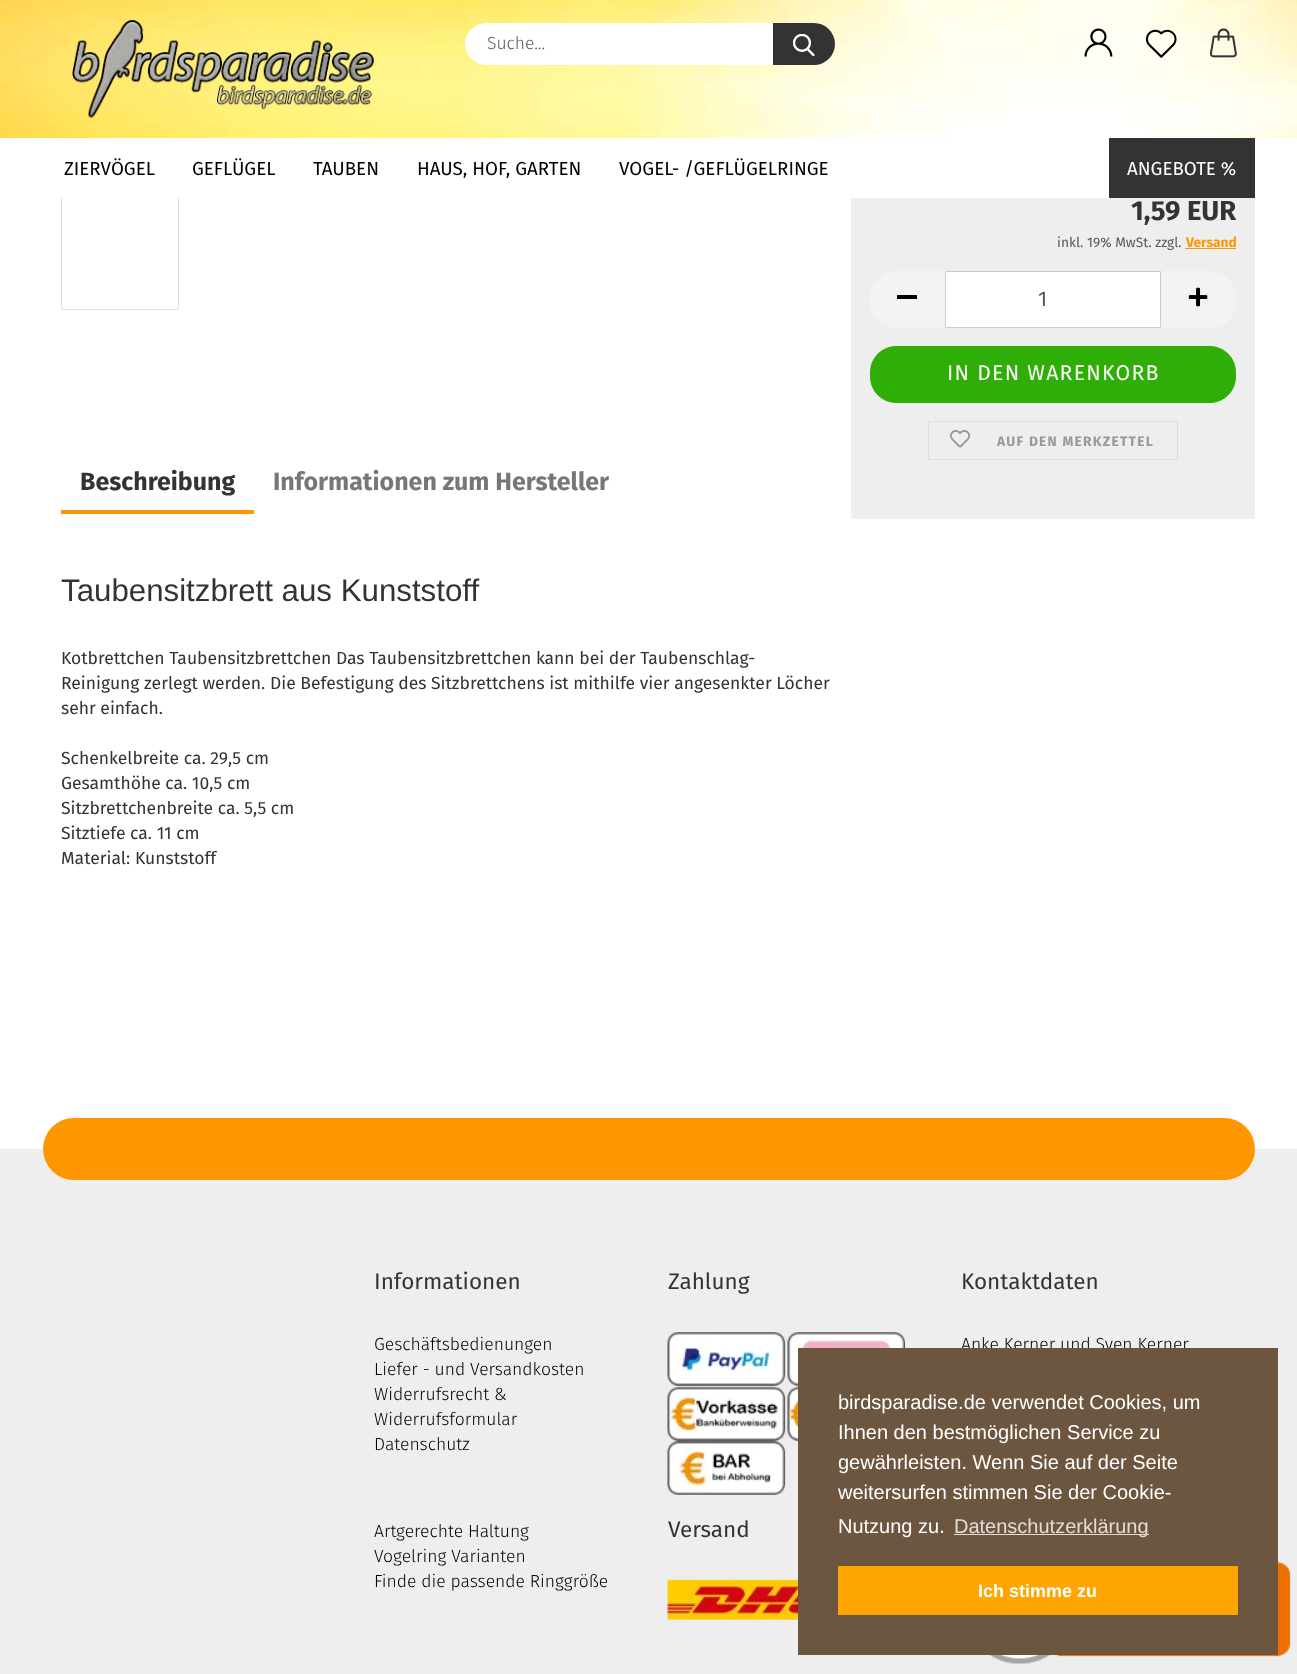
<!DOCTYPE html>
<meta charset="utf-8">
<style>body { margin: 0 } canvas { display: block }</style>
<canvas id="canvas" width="1297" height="1674"></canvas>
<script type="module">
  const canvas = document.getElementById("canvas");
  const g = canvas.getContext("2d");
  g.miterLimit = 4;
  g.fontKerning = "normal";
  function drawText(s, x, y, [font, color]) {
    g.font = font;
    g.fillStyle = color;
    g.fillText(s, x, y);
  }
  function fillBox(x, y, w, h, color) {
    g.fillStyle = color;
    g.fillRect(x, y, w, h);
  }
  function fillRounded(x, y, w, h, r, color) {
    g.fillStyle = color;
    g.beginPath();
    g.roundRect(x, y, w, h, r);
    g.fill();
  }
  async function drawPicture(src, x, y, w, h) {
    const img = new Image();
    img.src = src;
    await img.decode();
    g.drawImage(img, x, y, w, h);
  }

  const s1 = ["300 17.5px Fira Sans", "#595959"];
  const s2 = ["18.75px Fira Sans", "#000000"];
  const s3 = ["18.75px Fira Sans", "#FFFFFF"];
  const s4 = ["bold 27.5px Fira Sans", "#333333"];
  const s5 = ["13.75px Fira Sans", "#595959"];
  const s6 = ["bold 13.75px Fira Sans", "#FE9602"];
  const s7 = ["21.25px Fira Sans", "#595959"];
  const s8 = ["21.25px Fira Sans", "#FFFFFF"];
  const s9 = ["bold 13.75px Fira Sans", "#999999"];
  const s10 = ["bold 25px Fira Sans", "#333333"];
  const s11 = ["bold 25px Fira Sans", "#777777"];
  const s12 = ["31.25px Liberation Sans", "#333333"];
  const s13 = ["17.5px Fira Sans", "#333333"];
  const s14 = ["22.5px Fira Sans", "#333333"];
  const s15 = ["300 17.5px Fira Sans", "#000000"];
  const s16 = ["20px Liberation Sans", "#FFFFFF"];
  const s17 = ["20px Liberation Sans", "#E2DDD9"];
  const s18 = ["bold 18px Liberation Sans", "#FFFFFF"];

  fillBox(0, 0, 1297, 1674, "#FFFFFF");
  g.beginPath();
  g.roundRect(61.5, -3.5, 117, 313, 2);
  g.strokeStyle = "#DDDDDD";
  g.stroke();
  fillRounded(851, -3, 404, 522, 2.5, "#EEEEEE");
  await drawPicture("pic1.png", 0, 0, 1297, 138);
  await drawPicture("pic2.png", 72, 20, 302, 98);
  g.fillStyle = "#FFFFFF";
  g.beginPath();
  g.roundRect(466.5, 24.5, 365, 39, 19.5);
  g.fill();
  g.strokeStyle = "#FFFFFF";
  g.lineWidth = 3;
  g.stroke();
  drawText("Suche...", 487, 49, s1);
  g.fillStyle = "#333333";
  g.beginPath();
  g.roundRect(773, 23, 62, 42, [0, 21, 21, 0]);
  g.fill();
  await drawPicture("pic3.png", 793, 34, 22, 22);
  await drawPicture("pic4.png", 1084, 28, 29, 29);
  await drawPicture("pic5.png", 1145, 29, 32, 29);
  await drawPicture("pic6.png", 1209, 28, 28, 30);
  fillBox(61, 138, 1194, 60, "#FFFFFF");
  drawText("ZIERVÖGEL", 64, 175, s2);
  drawText("GEFLÜGEL", 192, 175, s2);
  drawText("TAUBEN", 313, 175, s2);
  drawText("HAUS, HOF, GARTEN", 417, 175, s2);
  drawText("VOGEL- /GEFLÜGELRINGE", 619, 175, s2);
  fillBox(1109, 138, 146, 60, "#333333");
  drawText("ANGEBOTE %", 1127, 175, s3);
  drawText("1,59 EUR", 1131, 220, s4);
  drawText("inkl. 19% MwSt. zzgl.", 1057, 247, s5);
  drawText("Versand", 1186, 247, s6);
  fillBox(1185, 248, 51, 1, "#FE9602");
  g.fillStyle = "#F3F3F3";
  g.beginPath();
  g.roundRect(870, 271, 75, 57, [26, 0, 0, 26]);
  g.fill();
  fillBox(897, 295, 20, 4, "#000000");
  g.fillStyle = "#FFFFFF";
  g.beginPath();
  g.rect(945.5, 271.5, 215, 56);
  g.fill();
  g.strokeStyle = "#CCCCCC";
  g.lineWidth = 1;
  g.stroke();
  drawText("1", 1038, 306, s7);
  g.fillStyle = "#F3F3F3";
  g.beginPath();
  g.roundRect(1161, 271, 75, 57, [0, 26, 26, 0]);
  g.fill();
  await drawPicture("pic7.png", 1188, 287, 20, 20);
  g.fillStyle = "#2EAE06";
  g.beginPath();
  g.roundRect(870.5, 346.5, 365, 56, 25.5);
  g.fill();
  g.strokeStyle = "#2EAE06";
  g.stroke();
  g.letterSpacing = "1.25px";
  drawText("IN DEN WARENKORB", 947, 380, s8);
  g.strokeStyle = "#DDDDDD";
  g.strokeRect(928.5, 421.5, 249, 38);
  await drawPicture("pic8.png", 950, 430, 20, 18);
  drawText("AUF DEN MERKZETTEL", 997, 446, s9);
  fillBox(61, 510, 193, 4, "#FE9602");
  g.letterSpacing = "0px";
  drawText("Beschreibung", 80, 490, s10);
  drawText("Informationen zum Hersteller", 273, 490, s11);
  drawText("Taubensitzbrett aus Kunststoff", 61, 601, s12);
  drawText("Kotbrettchen Taubensitzbrettchen Das Taubensitzbrettchen kann bei der Taubenschlag-", 61, 664, s13);
  drawText("Reinigung zerlegt werden. Die Befestigung des Sitzbrettchens ist mithilfe vier angesenkter Löcher", 61, 689, s13);
  drawText("sehr einfach.", 61, 714, s13);
  drawText("Schenkelbreite ca. 29,5 cm", 61, 764, s13);
  drawText("Gesamthöhe ca. 10,5 cm", 61, 789, s13);
  drawText("Sitzbrettchenbreite ca. 5,5 cm", 61, 814, s13);
  drawText("Sitztiefe ca. 11 cm", 61, 839, s13);
  drawText("Material: Kunststoff", 61, 864, s13);
  fillBox(0, 1149, 1297, 525, "#EEEEEE");
  fillRounded(43, 1118, 1212, 62, 31, "#FE9602");
  drawText("Informationen", 374, 1289, s14);
  drawText("Geschäftsbedienungen", 374, 1350, s15);
  drawText("Liefer - und Versandkosten", 374, 1375, s15);
  drawText("Widerrufsrecht &", 374, 1400, s15);
  drawText("Widerrufsformular", 374, 1425, s15);
  drawText("Datenschutz", 374, 1450, s15);
  drawText("Artgerechte Haltung", 374, 1537, s15);
  drawText("Vogelring Varianten", 374, 1562, s15);
  drawText("Finde die passende Ringgröße", 374, 1587, s15);
  drawText("Zahlung", 668, 1289, s14);
  await drawPicture("pic9.png", 667, 1332, 238, 163);
  drawText("Versand", 668, 1537, s14);
  await drawPicture("pic10.png", 667, 1579, 131, 41);
  drawText("Kontaktdaten", 961, 1289, s14);
  drawText("Anke Kerner und Sven Kerner", 961, 1350, s15);
  await drawPicture("pic11.png", 989, 1562, 302, 102);
  fillBox(798, 1348, 480, 307, "#6C563F");
  drawText("birdsparadise.de verwendet Cookies, um", 838, 1409, s16);
  drawText("Ihnen den bestmöglichen Service zu", 838, 1439, s16);
  drawText("gewährleisten. Wenn Sie auf der Seite", 838, 1469, s16);
  drawText("weitersurfen stimmen Sie der Cookie-", 838, 1499, s16);
  drawText("Nutzung zu.", 838, 1533, s16);
  fillBox(954, 1534, 195, 1, "#E2DDD9");
  drawText("Datenschutzerklärung", 954, 1533, s17);
  fillBox(838, 1566, 400, 49, "#FEA500");
  drawText("Ich stimme zu", 978, 1597, s18);
</script>
